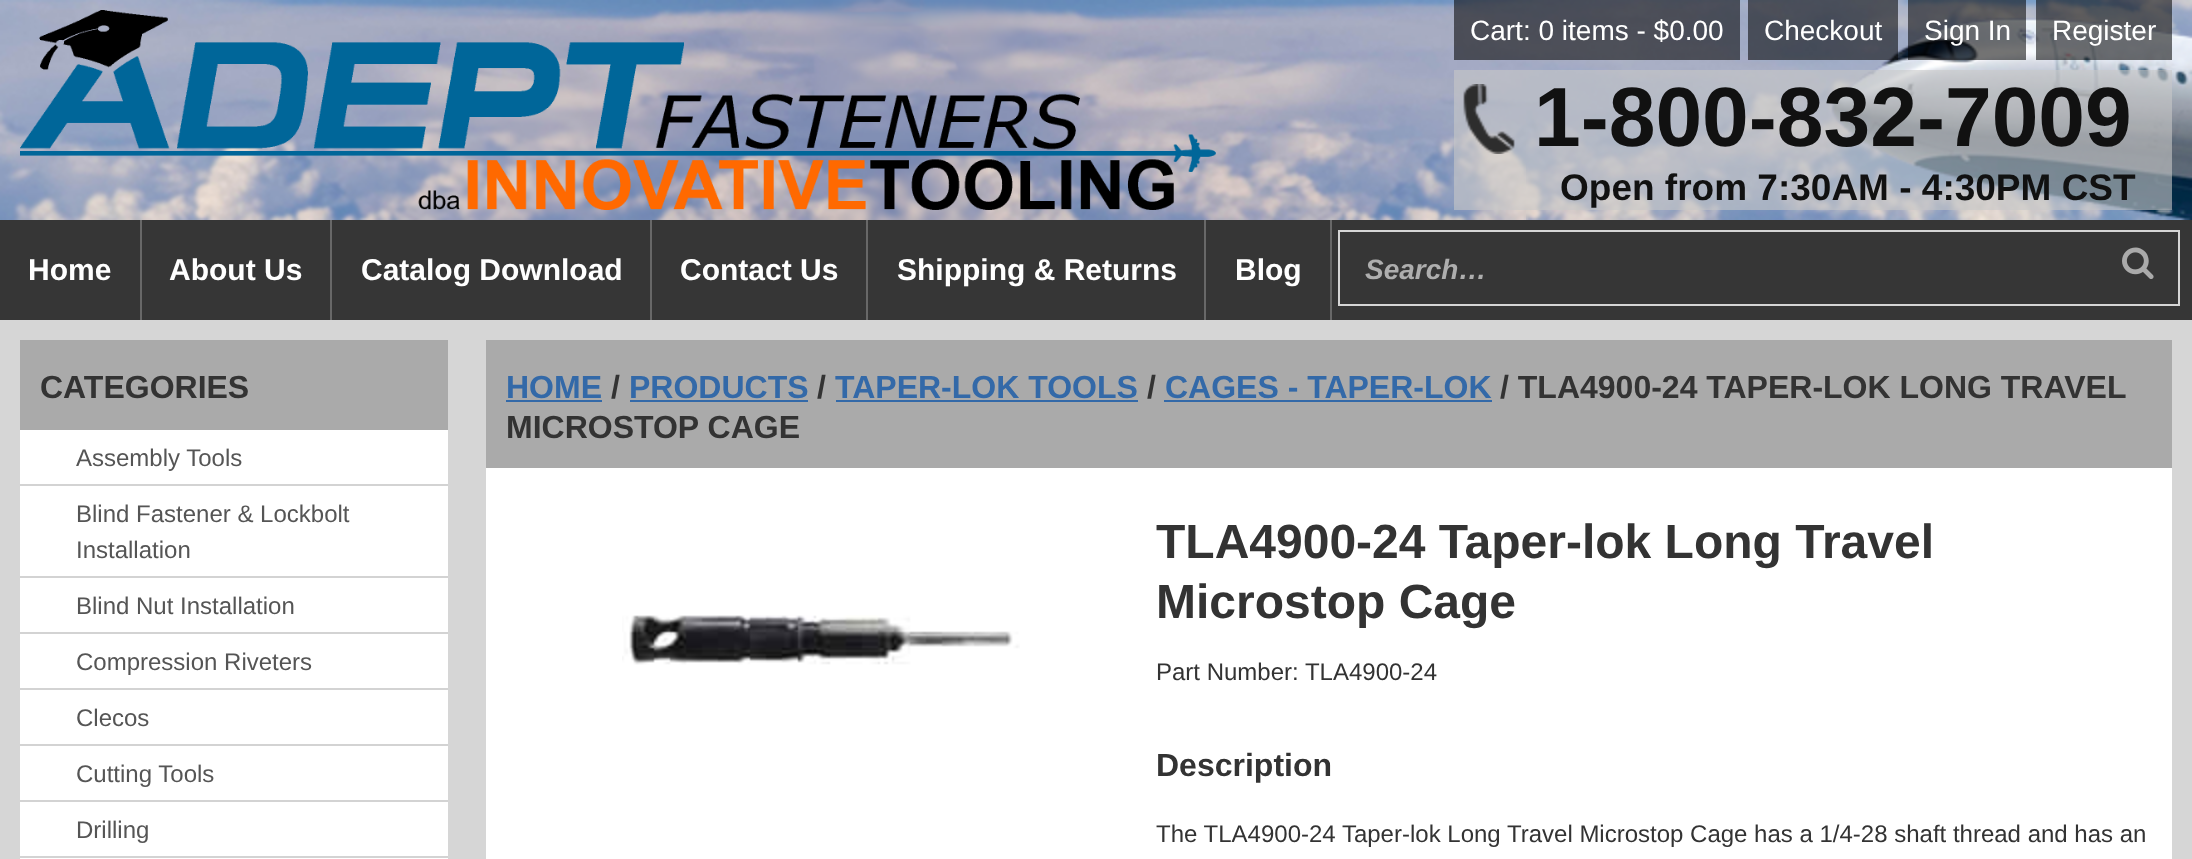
<!DOCTYPE html>
<meta charset="utf-8">
<style>body { margin: 0 } canvas { display: block }</style>
<canvas id="canvas" width="2192" height="859"></canvas>
<script type="module">
  const canvas = document.getElementById("canvas");
  const g = canvas.getContext("2d");
  g.miterLimit = 4;
  g.fontKerning = "normal";
  function drawText(s, x, y, [font, color]) {
    g.font = font;
    g.fillStyle = color;
    g.fillText(s, x, y);
  }
  function fillBox(x, y, w, h, color) {
    g.fillStyle = color;
    g.fillRect(x, y, w, h);
  }
  async function drawPicture(src, x, y, w, h) {
    const img = new Image();
    img.src = src;
    await img.decode();
    g.drawImage(img, x, y, w, h);
  }

  const s1 = ["28px Liberation Sans", "#FFFFFF"];
  const s2 = ["bold 84px Liberation Sans", "#111111"];
  const s3 = ["bold 37px Liberation Sans", "#111111"];
  const s4 = ["bold 30px Liberation Sans", "#FFFFFF"];
  const s5 = ["italic bold 28px Liberation Sans", "#AEAEAE"];
  const s6 = ["bold 32px Liberation Sans", "#333333"];
  const s7 = ["24px Liberation Sans", "#555555"];
  const s8 = ["bold 32px Liberation Sans", "#3369A8"];
  const s9 = ["bold 48px Liberation Sans", "#333333"];
  const s10 = ["24px Liberation Sans", "#333333"];

  fillBox(0, 0, 2192, 859, "#D6D6D6");
  await drawPicture("pic1.png", 0, 0, 2192, 220);
  await drawPicture("pic2.png", 20, 10, 1196, 200);
  fillBox(1454, 0, 286, 60, "rgba(0, 0, 0, 0.55)");
  drawText("Cart: 0 items - $0.00", 1470, 40, s1);
  fillBox(1748, 0, 150, 60, "rgba(0, 0, 0, 0.55)");
  drawText("Checkout", 1764, 40, s1);
  fillBox(1908, 0, 118, 60, "rgba(0, 0, 0, 0.55)");
  drawText("Sign In", 1924, 40, s1);
  fillBox(2036, 0, 136, 60, "rgba(0, 0, 0, 0.55)");
  drawText("Register", 2052, 40, s1);
  fillBox(1454, 70, 718, 140, "rgba(200, 200, 200, 0.6)");
  await drawPicture("pic3.png", 1463, 84, 52, 70);
  drawText("1-800-832-7009", 1534, 146, s2);
  drawText("Open from 7:30AM - 4:30PM CST", 1560, 200, s3);
  fillBox(0, 220, 2192, 100, "#363636");
  fillBox(140, 220, 2, 100, "#686868");
  drawText("Home", 28, 280, s4);
  fillBox(330, 220, 2, 100, "#686868");
  drawText("About Us", 169, 280, s4);
  fillBox(650, 220, 2, 100, "#686868");
  drawText("Catalog Download", 361, 280, s4);
  fillBox(866, 220, 2, 100, "#686868");
  drawText("Contact Us", 680, 280, s4);
  fillBox(1204, 220, 2, 100, "#686868");
  drawText("Shipping & Returns", 897, 280, s4);
  fillBox(1330, 220, 2, 100, "#686868");
  drawText("Blog", 1235, 280, s4);
  g.strokeStyle = "#D6D6D6";
  g.lineWidth = 2;
  g.strokeRect(1339, 231, 840, 74);
  drawText("Search…", 1365, 279, s5);
  await drawPicture("pic4.png", 2122, 247, 32, 32);
  fillBox(20, 340, 428, 90, "#AAAAAA");
  drawText("CATEGORIES", 40, 398, s6);
  fillBox(20, 430, 428, 54, "#FFFFFF");
  fillBox(20, 484, 428, 2, "#D3D3D3");
  drawText("Assembly Tools", 76, 466, s7);
  fillBox(20, 486, 428, 90, "#FFFFFF");
  fillBox(20, 576, 428, 2, "#D3D3D3");
  drawText("Blind Fastener & Lockbolt", 76, 522, s7);
  drawText("Installation", 76, 558, s7);
  fillBox(20, 578, 428, 54, "#FFFFFF");
  fillBox(20, 632, 428, 2, "#D3D3D3");
  drawText("Blind Nut Installation", 76, 614, s7);
  fillBox(20, 634, 428, 54, "#FFFFFF");
  fillBox(20, 688, 428, 2, "#D3D3D3");
  drawText("Compression Riveters", 76, 670, s7);
  fillBox(20, 690, 428, 54, "#FFFFFF");
  fillBox(20, 744, 428, 2, "#D3D3D3");
  drawText("Clecos", 76, 726, s7);
  fillBox(20, 746, 428, 54, "#FFFFFF");
  fillBox(20, 800, 428, 2, "#D3D3D3");
  drawText("Cutting Tools", 76, 782, s7);
  fillBox(20, 802, 428, 54, "#FFFFFF");
  fillBox(20, 856, 428, 2, "#D3D3D3");
  drawText("Drilling", 76, 838, s7);
  fillBox(20, 858, 428, 1, "#FFFFFF");
  fillBox(486, 340, 1686, 128, "#AAAAAA");
  drawText("HOME", 506, 398, s8);
  fillBox(506, 400, 96, 2, "#3369A8");
  drawText("/", 611, 398, s6);
  drawText("PRODUCTS", 629, 398, s8);
  fillBox(630, 400, 178, 2, "#3369A8");
  drawText("/", 817, 398, s6);
  drawText("TAPER-LOK TOOLS", 835, 398, s8);
  fillBox(836, 400, 302, 2, "#3369A8");
  drawText("/", 1147, 398, s6);
  drawText("CAGES - TAPER-LOK", 1165, 398, s8);
  fillBox(1164, 400, 328, 2, "#3369A8");
  drawText("/ TLA4900-24 TAPER-LOK LONG TRAVEL", 1500, 398, s6);
  drawText("MICROSTOP CAGE", 506, 438, s6);
  fillBox(486, 468, 1686, 391, "#FFFFFF");
  await drawPicture("pic5.png", 622, 615, 398, 50);
  drawText("TLA4900-24 Taper-lok Long Travel", 1156, 558, s9);
  drawText("Microstop Cage", 1156, 618, s9);
  drawText("Part Number: TLA4900-24", 1156, 680, s10);
  drawText("Description", 1156, 776, s6);
  drawText("The TLA4900-24 Taper-lok Long Travel Microstop Cage has a 1/4-28 shaft thread and has an", 1156, 842, s10);
</script>
